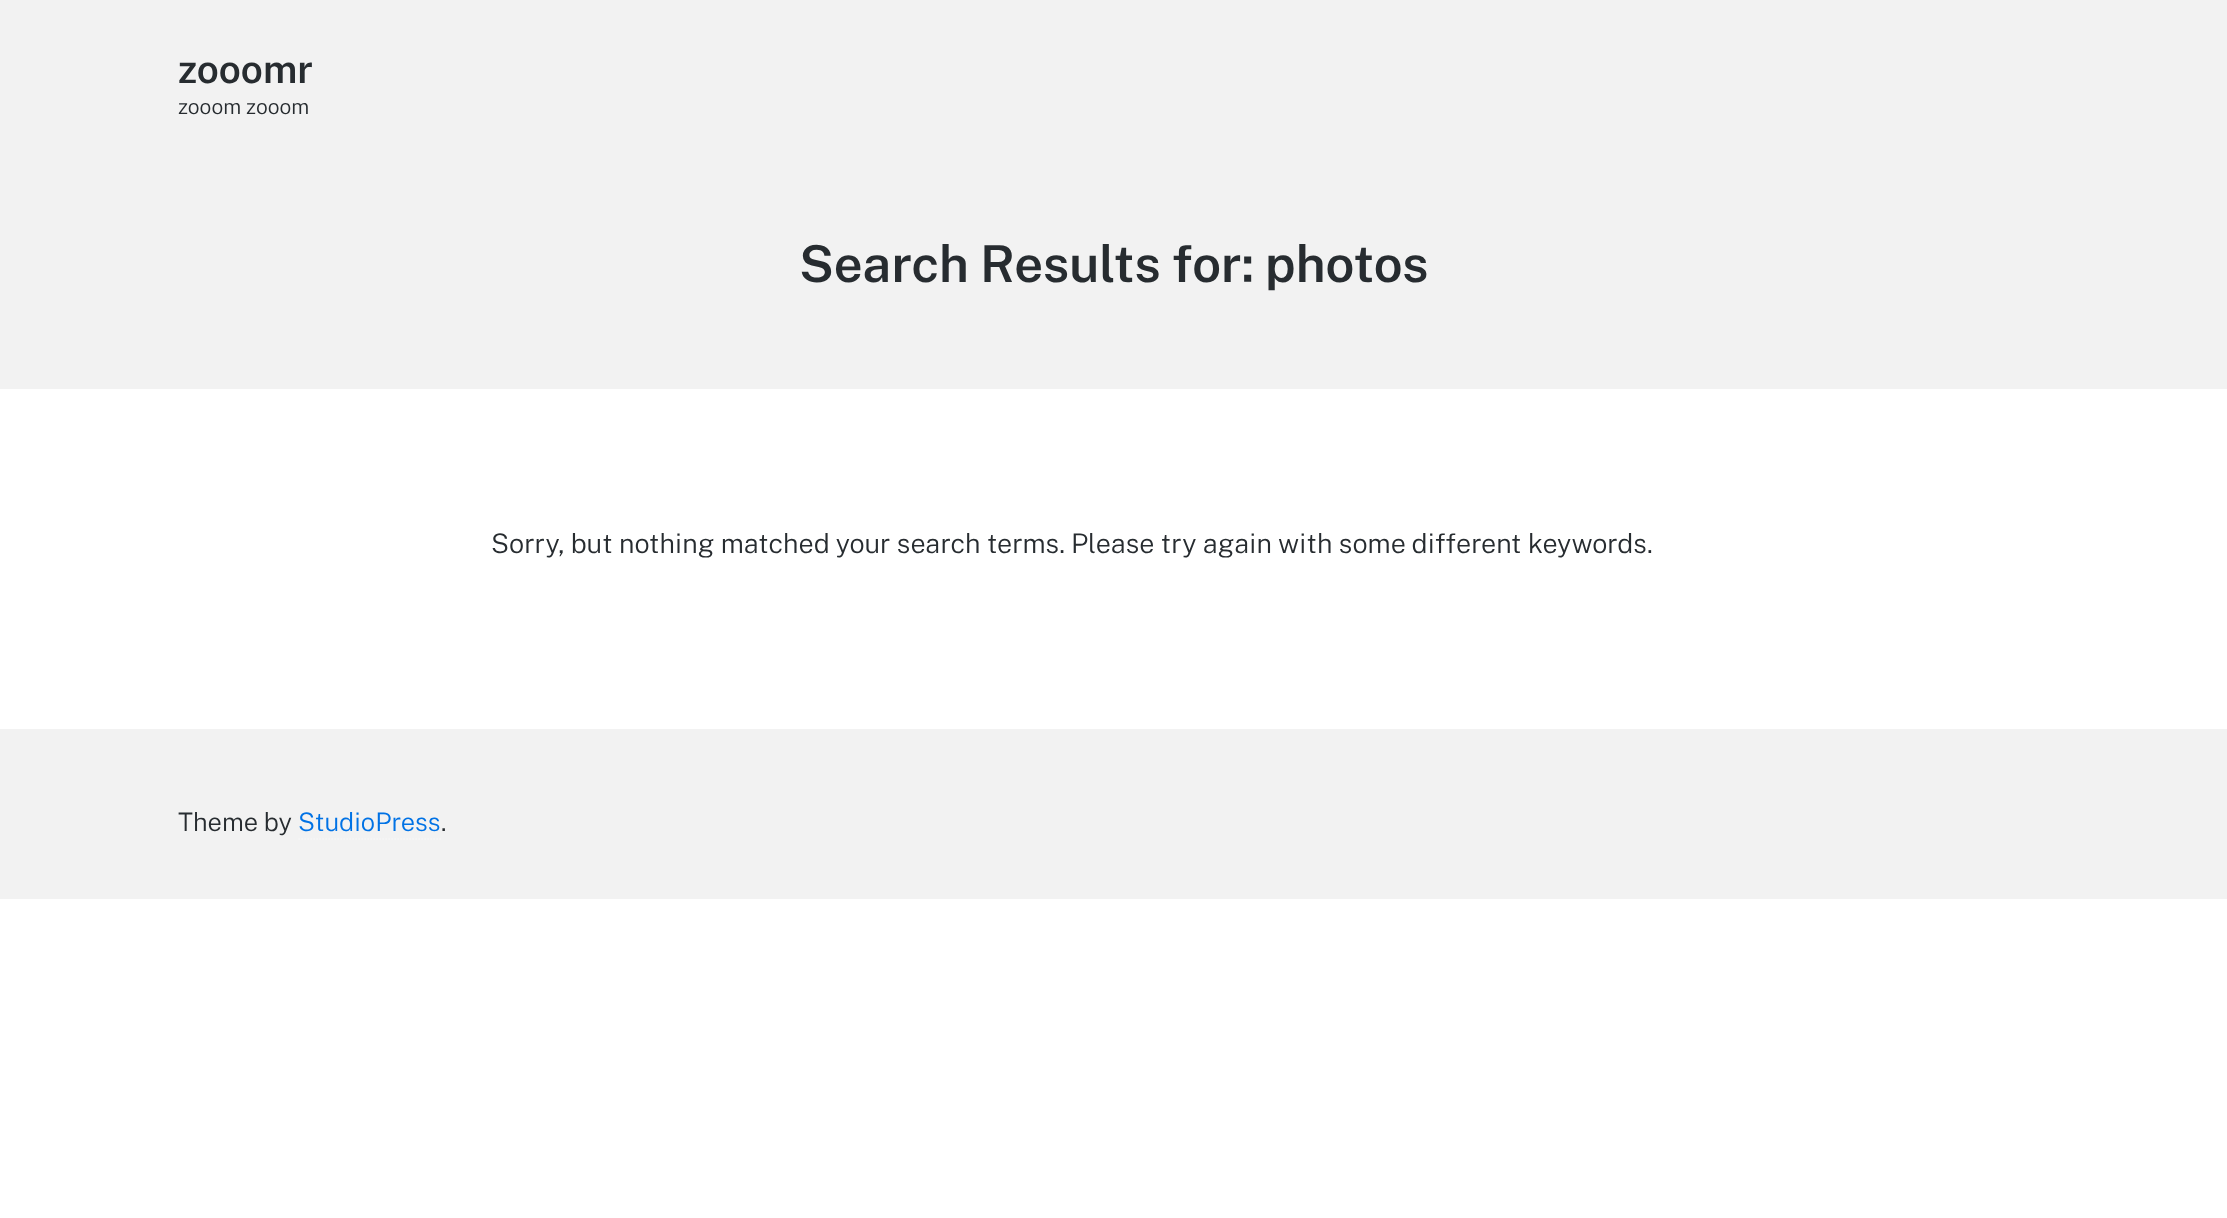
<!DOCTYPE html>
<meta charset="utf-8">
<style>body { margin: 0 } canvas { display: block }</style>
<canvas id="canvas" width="2227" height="1218"></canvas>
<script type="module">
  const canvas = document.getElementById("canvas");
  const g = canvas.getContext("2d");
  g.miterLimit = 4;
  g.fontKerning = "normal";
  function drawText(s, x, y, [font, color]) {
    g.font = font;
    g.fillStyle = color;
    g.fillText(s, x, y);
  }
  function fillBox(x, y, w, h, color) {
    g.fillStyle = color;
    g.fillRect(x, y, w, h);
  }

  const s1 = ["600 39px Public Sans", "#272C30"];
  const s2 = ["300 21px Public Sans", "#272C30"];
  const s3 = ["600 51px Public Sans", "#272C30"];
  const s4 = ["300 27px Public Sans", "#272C30"];
  const s5 = ["300 25.5px Public Sans", "#272C30"];
  const s6 = ["300 25.5px Public Sans", "#0072E5"];

  fillBox(0, 0, 2227, 1218, "#FFFFFF");
  fillBox(0, 0, 2227, 389, "#F2F2F2");
  drawText("zooomr", 178, 83, s1);
  drawText("zooom zooom", 178, 114, s2);
  drawText("Search Results for: photos", 799, 282, s3);
  drawText("Sorry, but nothing matched your search terms. Please try again with some different keywords.", 491, 553, s4);
  fillBox(0, 729, 2227, 170, "#F2F2F2");
  drawText("Theme by", 178, 831, s5);
  drawText("StudioPress", 298, 831, s6);
  g.beginPath();
  g.moveTo(298.5, 839);
  g.lineTo(441, 839);
  g.strokeStyle = "#F6F6F6";
  g.lineWidth = 1.5;
  g.setLineDash([1.5, 1.5]);
  g.stroke();
  drawText(".", 441, 831, s5);
</script>
